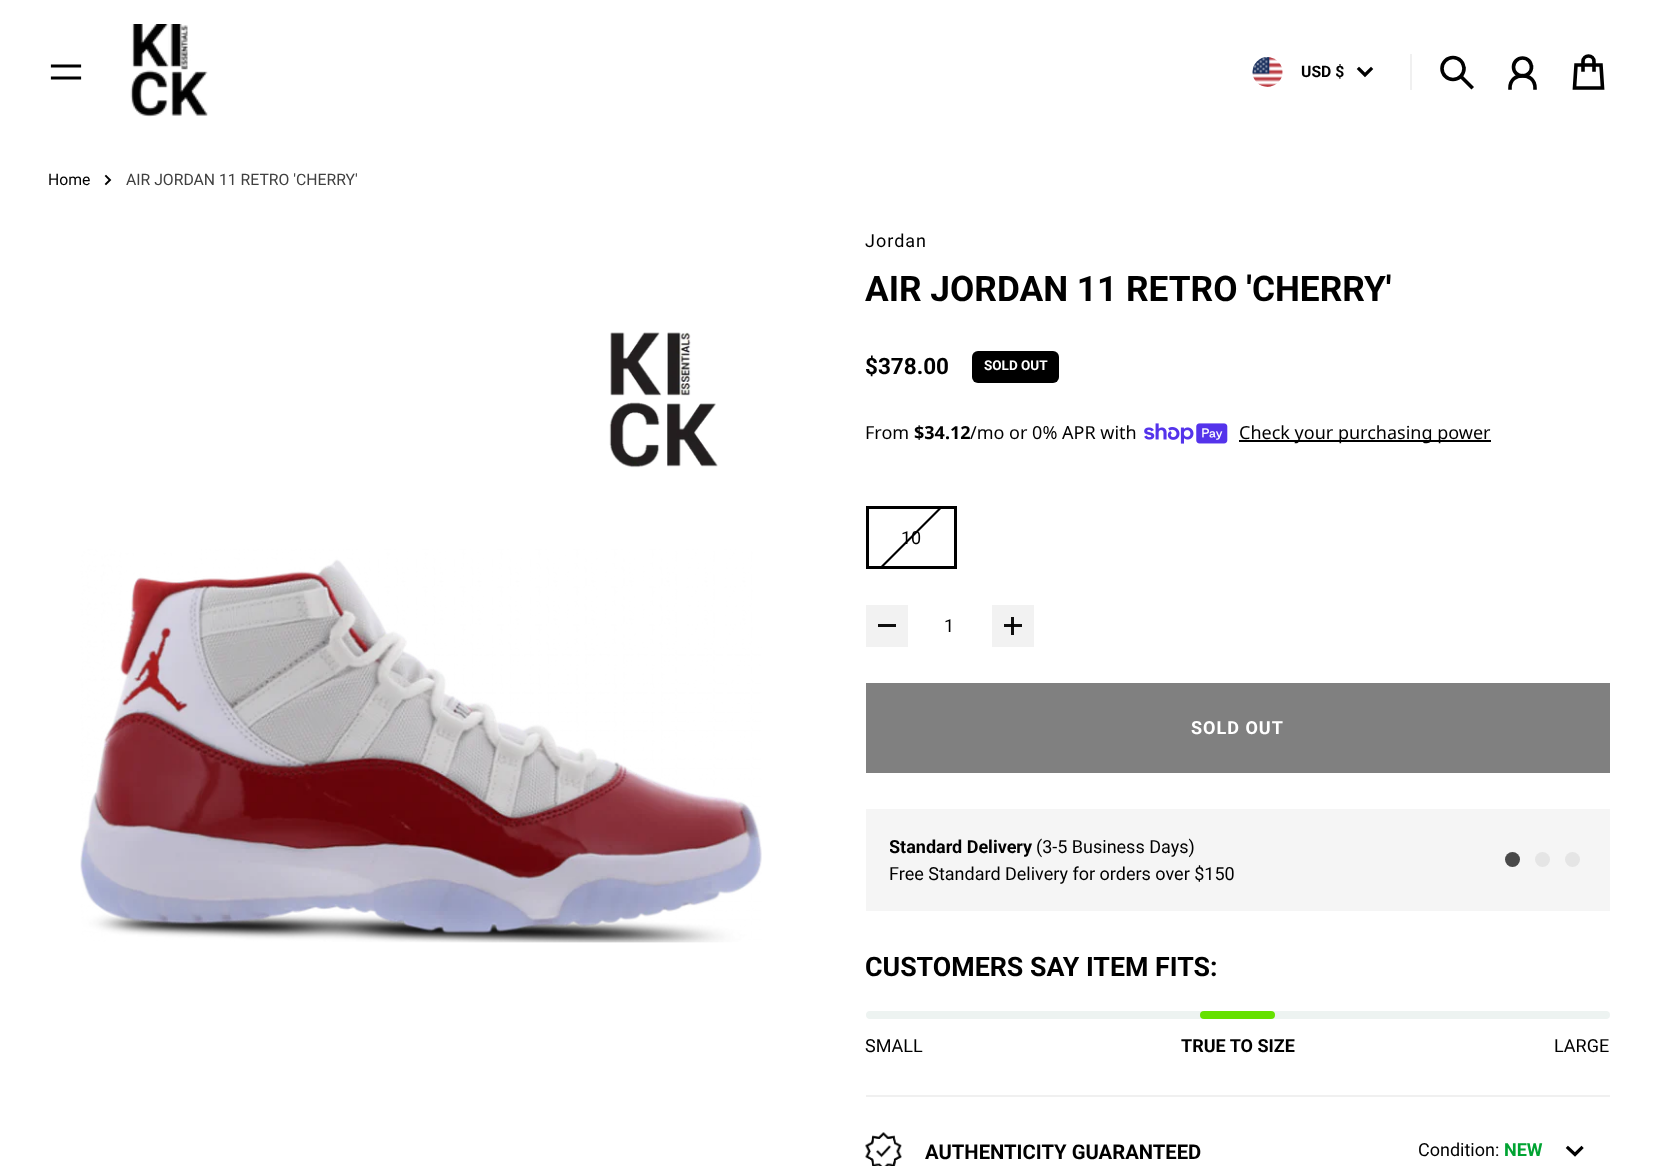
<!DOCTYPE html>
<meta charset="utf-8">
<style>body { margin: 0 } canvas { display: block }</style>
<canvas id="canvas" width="1657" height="1166"></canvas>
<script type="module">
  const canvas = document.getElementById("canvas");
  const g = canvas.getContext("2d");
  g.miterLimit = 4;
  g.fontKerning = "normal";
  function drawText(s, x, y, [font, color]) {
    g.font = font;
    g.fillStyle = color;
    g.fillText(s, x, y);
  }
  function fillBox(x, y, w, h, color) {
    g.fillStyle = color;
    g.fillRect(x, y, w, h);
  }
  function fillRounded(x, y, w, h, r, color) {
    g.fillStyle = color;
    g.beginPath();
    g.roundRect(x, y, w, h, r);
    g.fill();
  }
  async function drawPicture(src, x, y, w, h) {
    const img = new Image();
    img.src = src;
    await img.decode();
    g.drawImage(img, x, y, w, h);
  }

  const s1 = ["bold 15.75px Roboto", "#000000"];
  const s2 = ["15.75px Roboto", "#000000"];
  const s3 = ["15.75px Roboto", "#404040"];
  const s4 = ["18px Roboto", "#000000"];
  const s5 = ["bold 35.25px Roboto", "#000000"];
  const s6 = ["bold 22.5px Roboto", "#000000"];
  const s7 = ["bold 13.5px Roboto", "#FFFFFF"];
  const s8 = ["18px Noto Sans", "#000000"];
  const s9 = ["bold 18px Noto Sans", "#000000"];
  const s10 = ["bold 18px Roboto", "#FFFFFF"];
  const s11 = ["bold 18px Roboto", "#000000"];
  const s12 = ["bold 26.75px Roboto", "#000000"];
  const s13 = ["bold 20.25px Roboto", "#000000"];
  const s14 = ["bold 18px Roboto", "#00A332"];

  fillBox(0, 0, 1657, 1166, "#FFFFFF");
  g.beginPath();
  g.moveTo(79.5, 78);
  g.lineTo(52.5, 78);
  g.moveTo(79.5, 66);
  g.lineTo(52.5, 66);
  g.strokeStyle = "#000000";
  g.lineWidth = 3.2;
  g.lineCap = "square";
  g.stroke();
  await drawPicture("pic1.png", 130, 24, 78, 93);
  await drawPicture("pic2.png", 1252, 57, 31, 30);
  drawText("USD $", 1301, 77, s1);
  g.beginPath();
  g.moveTo(1359, 69);
  g.lineTo(1365, 75);
  g.lineTo(1371, 69);
  g.stroke();
  fillBox(1410, 54, 2, 36, "#F0F0F0");
  g.beginPath();
  g.moveTo(1471.5, 87);
  g.lineTo(1461, 76.5);
  g.lineWidth = 3.6;
  g.stroke();
  g.beginPath();
  g.arc(1453, 68.5, 11, 0, Math.PI * 2);
  g.stroke();
  g.beginPath();
  g.arc(1522.5, 67, 9, 0, Math.PI * 2);
  g.stroke();
  g.beginPath();
  g.moveTo(1535, 88);
  g.bezierCurveTo(1535, 71.5, 1510, 71.5, 1510, 88);
  g.stroke();
  g.beginPath();
  g.moveTo(1583, 70);
  g.lineTo(1583, 61.5);
  g.bezierCurveTo(1583, 58.5, 1585.5, 56, 1588.5, 56);
  g.bezierCurveTo(1591.5, 56, 1594, 58.5, 1594, 61.5);
  g.lineTo(1594, 70);
  g.moveTo(1574.5, 88);
  g.lineTo(1602.5, 88);
  g.lineTo(1601, 65);
  g.lineTo(1576, 65);
  g.closePath();
  g.stroke();
  drawText("Home", 48, 185, s2);
  g.beginPath();
  g.moveTo(106, 184);
  g.lineTo(110, 180);
  g.lineTo(106, 176);
  g.lineWidth = 1.9;
  g.stroke();
  drawText("AIR JORDAN 11 RETRO 'CHERRY'", 126, 185, s3);
  await drawPicture("pic3.png", 80, 332, 682, 611);
  g.letterSpacing = "1px";
  drawText("Jordan", 865, 247, s4);
  g.letterSpacing = "0px";
  drawText("AIR JORDAN 11 RETRO 'CHERRY'", 865, 301, s5);
  drawText("$378.00", 865, 374, s6);
  fillRounded(972, 351, 87, 32, 6, "#000000");
  drawText("SOLD OUT", 984, 370, s7);
  drawText("From", 865, 439, s8);
  drawText("$34.12", 914, 439, s9);
  drawText("/mo or 0% APR with", 970, 439, s8);
  await drawPicture("pic4.png", 1144, 423, 84, 21);
  fillBox(1239, 440, 252, 2, "#000000");
  drawText("Check your purchasing power", 1239, 439, s8);
  g.save();
  g.beginPath();
  g.rect(866, 506, 91, 63);
  g.clip();
  g.beginPath();
  g.moveTo(880, 568.5);
  g.lineTo(943, 505.5);
  g.lineWidth = 2.1;
  g.lineCap = "butt";
  g.stroke();
  g.restore();
  g.lineWidth = 3;
  g.strokeRect(867.5, 507.5, 88, 60);
  drawText("10", 901, 544, s4);
  fillBox(866, 605, 42, 42, "#F2F2F2");
  fillBox(878, 624, 18, 3, "#101010");
  drawText("1", 944, 632, s4);
  fillBox(992, 605, 42, 42, "#F2F2F2");
  fillBox(1004, 624, 18, 3, "#111111");
  fillBox(1011, 617, 3, 18, "#101010");
  fillBox(1011, 624, 3, 3, "#010101");
  fillBox(866, 683, 744, 90, "#808080");
  g.letterSpacing = "1px";
  drawText("SOLD OUT", 1191, 734, s10);
  fillBox(866, 809, 744, 102, "#F5F5F5");
  g.save();
  g.beginPath();
  g.rect(890, 833, 696, 54);
  g.clip();
  g.letterSpacing = "0px";
  drawText("Standard Delivery", 889, 853, s11);
  g.restore();
  g.letterSpacing = "0px";
  drawText("(3-5 Business Days)", 1036, 853, s4);
  drawText("Free Standard Delivery for orders over $150", 889, 880, s4);
  g.fillStyle = "#494949";
  g.beginPath();
  g.arc(1512.5, 859.5, 7.5, 0, Math.PI * 2);
  g.fill();
  g.fillStyle = "#E5E5E5";
  g.beginPath();
  g.arc(1542.5, 859.5, 7.5, 0, Math.PI * 2);
  g.fill();
  g.beginPath();
  g.arc(1572.5, 859.5, 7.5, 0, Math.PI * 2);
  g.fill();
  drawText("CUSTOMERS SAY ITEM FITS:", 865, 976, s12);
  g.fillStyle = "#EDF3F1";
  g.beginPath();
  g.roundRect(867.5, 1012.5, 741, 5, 2.5);
  g.fill();
  g.strokeStyle = "#EDF3F1";
  g.stroke();
  fillRounded(1200, 1011, 75, 8, 4, "#65E100");
  drawText("SMALL", 865, 1052, s4);
  drawText("TRUE TO SIZE", 1181, 1052, s11);
  drawText("LARGE", 1554, 1052, s4);
  fillBox(866, 1095, 744, 2, "#F0F0F0");
  await drawPicture("pic5.png", 865, 1132, 37, 34);
  drawText("AUTHENTICITY GUARANTEED", 925, 1159, s13);
  drawText("Condition:", 1418, 1156, s4);
  drawText("NEW", 1504, 1156, s14);
  g.beginPath();
  g.moveTo(1568, 1148);
  g.lineTo(1575, 1154.5);
  g.lineTo(1581.5, 1148);
  g.strokeStyle = "#000000";
  g.lineWidth = 3.2;
  g.stroke();
</script>
